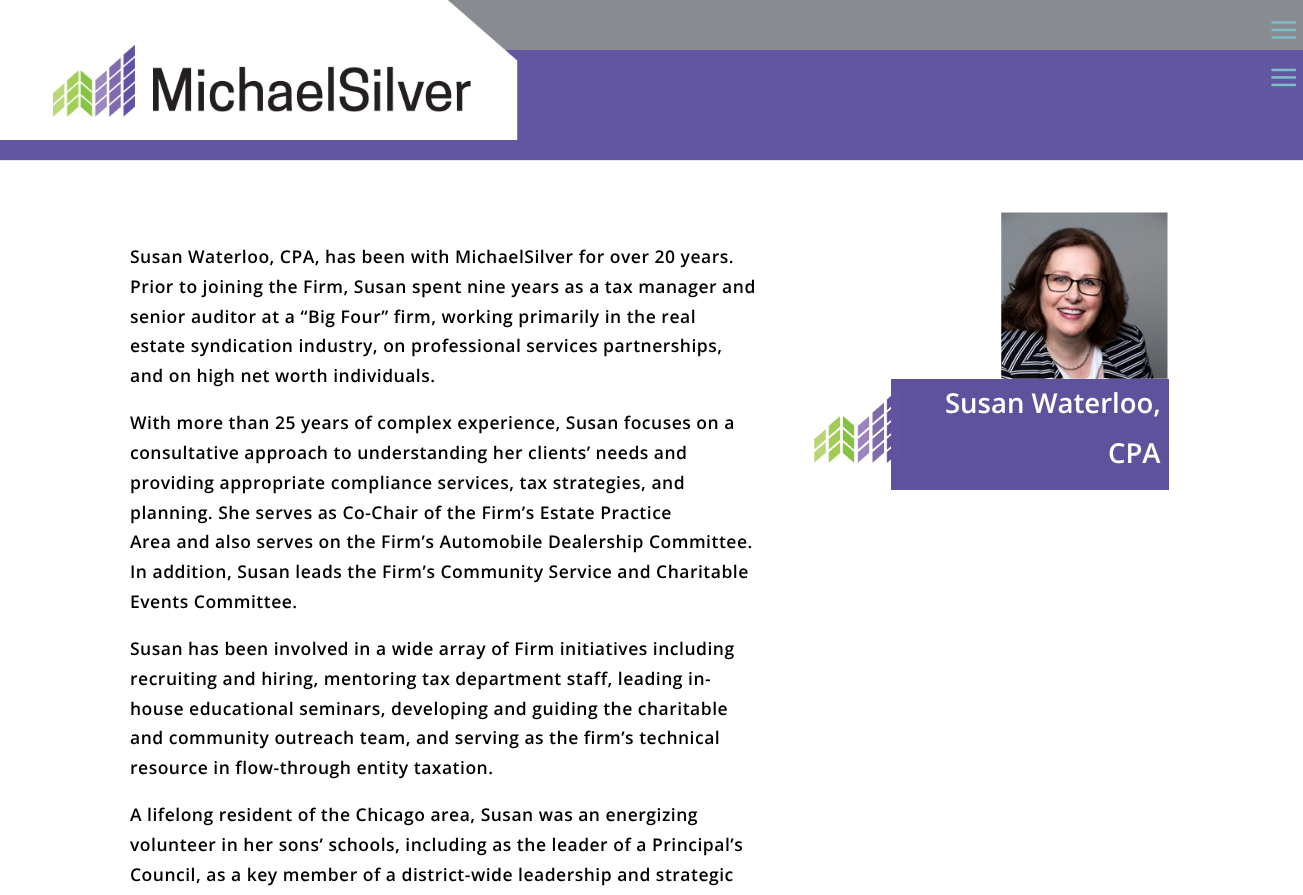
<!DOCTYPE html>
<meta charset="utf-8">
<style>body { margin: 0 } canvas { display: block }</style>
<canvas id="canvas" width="1303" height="895"></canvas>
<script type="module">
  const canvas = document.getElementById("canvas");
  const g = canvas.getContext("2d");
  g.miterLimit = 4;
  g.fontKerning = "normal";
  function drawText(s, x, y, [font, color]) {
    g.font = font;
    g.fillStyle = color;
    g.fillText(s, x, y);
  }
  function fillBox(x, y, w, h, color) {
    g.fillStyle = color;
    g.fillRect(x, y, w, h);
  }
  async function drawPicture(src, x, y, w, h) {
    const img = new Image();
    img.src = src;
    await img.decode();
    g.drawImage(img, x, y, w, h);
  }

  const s1 = ["600 17.5px Open Sans", "#000000"];
  const s2 = ["600 27.5px Open Sans", "#FFFFFF"];

  fillBox(0, 0, 1303, 895, "#FFFFFF");
  g.fillStyle = "#E6E6E6";
  g.beginPath();
  g.moveTo(0, 160);
  g.lineTo(0, 161);
  g.lineTo(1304, 161);
  g.lineTo(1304, 51);
  g.lineTo(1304, 160);
  g.closePath();
  g.fill();
  fillBox(0, 50, 1303, 110, "#6256A2");
  fillBox(447, 0, 856, 50, "#888B91");
  await drawPicture("pic1.png", 0, 0, 518, 140);
  await drawPicture("pic2.png", 1271, 68, 26, 19);
  await drawPicture("pic3.png", 1271, 21, 26, 18);
  g.letterSpacing = "0.5px";
  drawText("Susan Waterloo, CPA, has been with MichaelSilver for over 20 years.", 130, 263, s1);
  drawText("Prior to joining the Firm, Susan spent nine years as a tax manager and", 130, 293, s1);
  drawText("senior auditor at a “Big Four” firm, working primarily in the real", 130, 323, s1);
  drawText("estate syndication industry, on professional services partnerships,", 130, 352, s1);
  drawText("and on high net worth individuals.", 130, 382, s1);
  drawText("With more than 25 years of complex experience, Susan focuses on a", 130, 429, s1);
  drawText("consultative approach to understanding her clients’ needs and", 130, 459, s1);
  drawText("providing appropriate compliance services, tax strategies, and", 130, 489, s1);
  drawText("planning. She serves as Co-Chair of the Firm’s Estate Practice", 130, 519, s1);
  drawText("Area and also serves on the Firm’s Automobile Dealership Committee.", 130, 548, s1);
  drawText("In addition, Susan leads the Firm’s Community Service and Charitable", 130, 578, s1);
  drawText("Events Committee.", 130, 608, s1);
  drawText("Susan has been involved in a wide array of Firm initiatives including", 130, 655, s1);
  drawText("recruiting and hiring, mentoring tax department staff, leading in-", 130, 685, s1);
  drawText("house educational seminars, developing and guiding the charitable", 130, 715, s1);
  drawText("and community outreach team, and serving as the firm’s technical", 130, 744, s1);
  drawText("resource in flow-through entity taxation.", 130, 774, s1);
  drawText("A lifelong resident of the Chicago area, Susan was an energizing", 130, 821, s1);
  drawText("volunteer in her sons’ schools, including as the leader of a Principal’s", 130, 851, s1);
  drawText("Council, as a key member of a district-wide leadership and strategic", 130, 881, s1);
  await drawPicture("pic4.png", 1001, 212, 167, 167);
  fillBox(891, 379, 278, 111, "#5E529C");
  await drawPicture("pic5.png", 814, 389, 85, 74);
  g.letterSpacing = "0px";
  drawText("Susan Waterloo,", 945, 413, s2);
  drawText("CPA", 1108, 463, s2);
</script>
